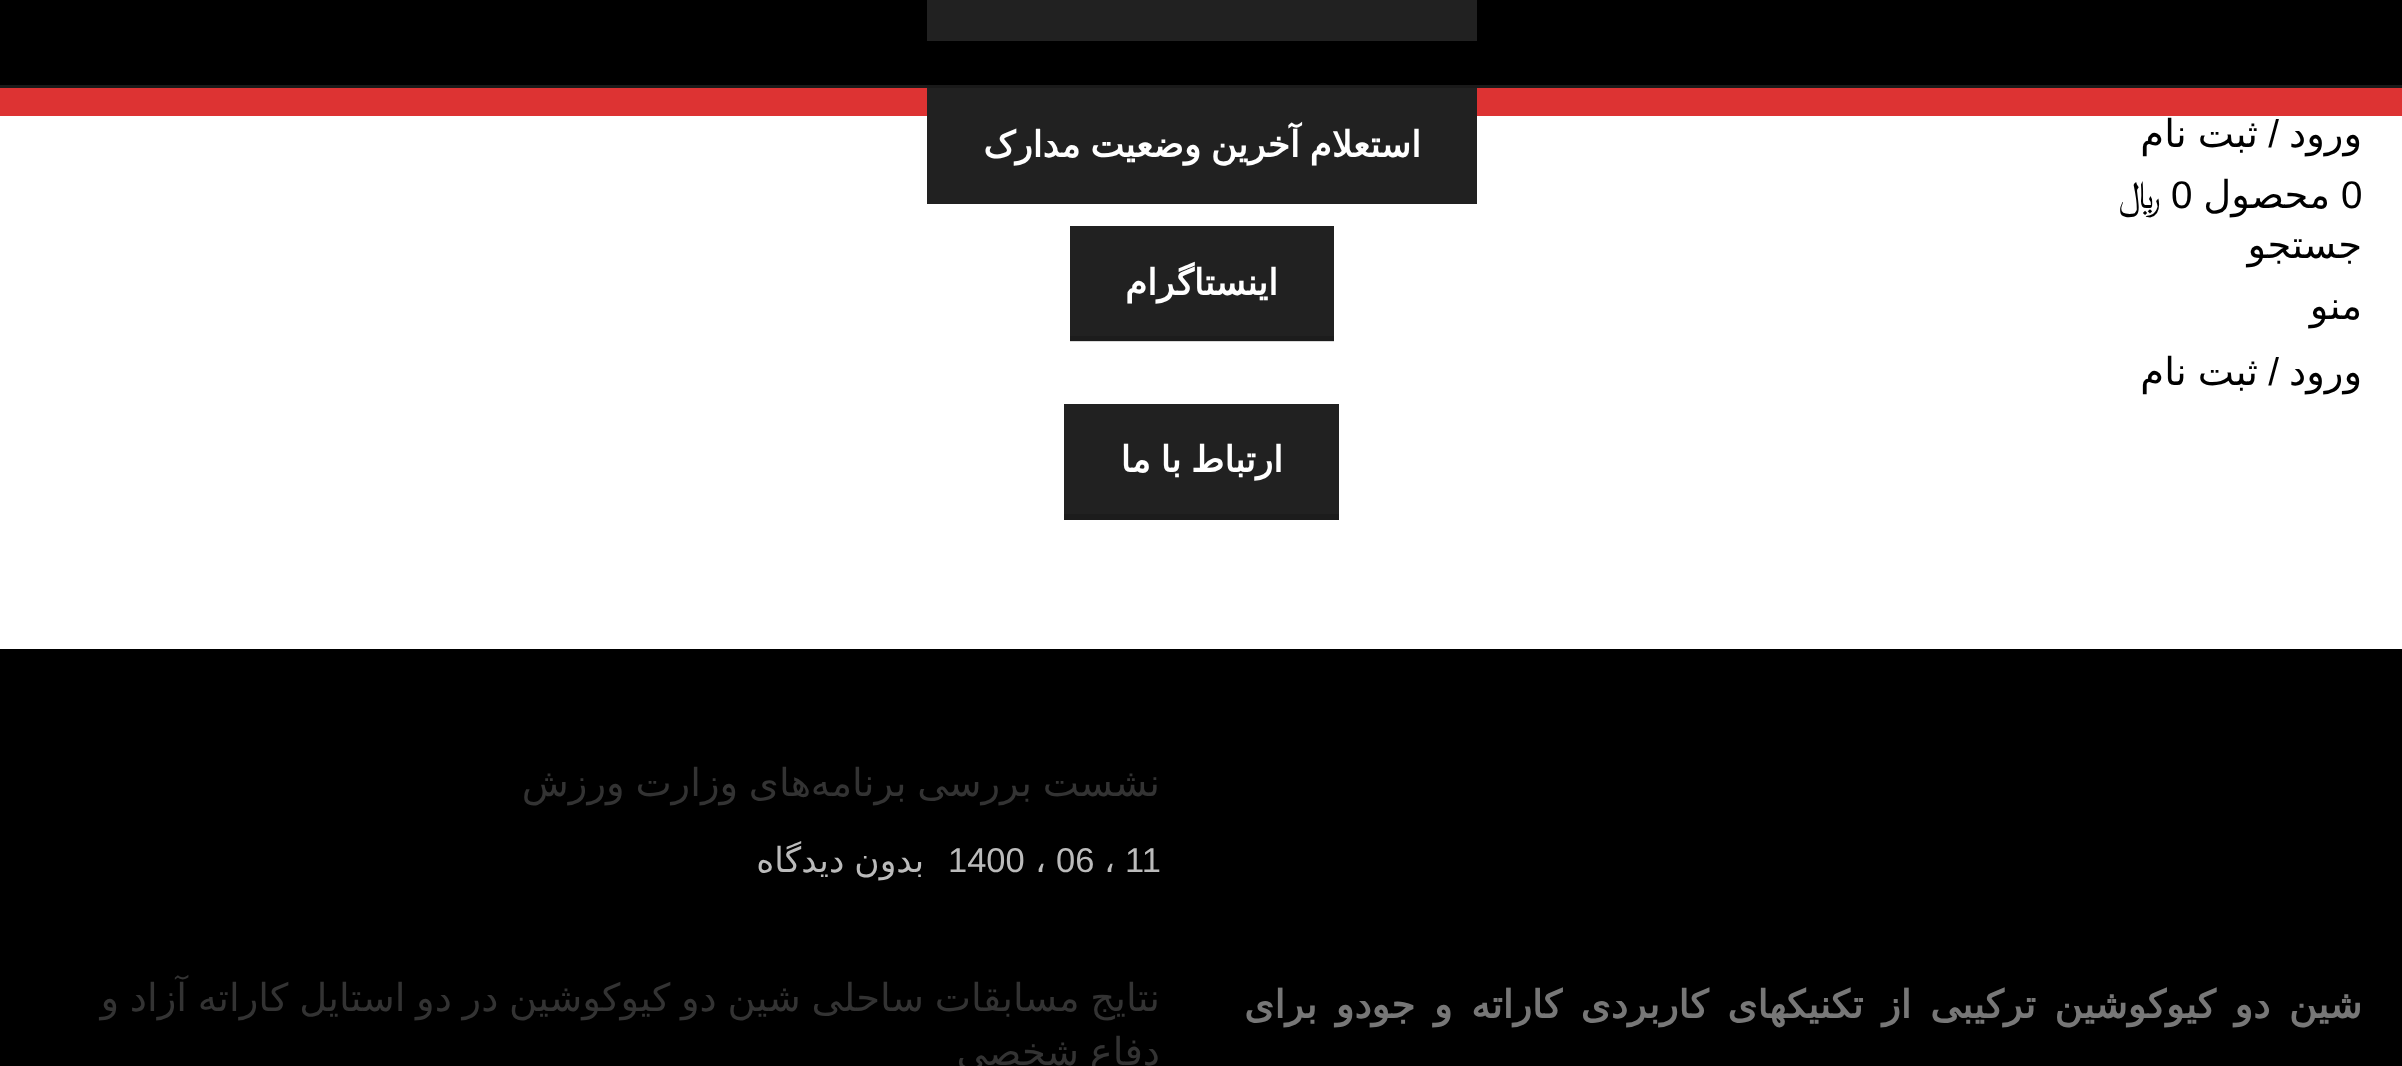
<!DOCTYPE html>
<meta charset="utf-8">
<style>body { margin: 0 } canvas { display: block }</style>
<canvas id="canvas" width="2402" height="1066"></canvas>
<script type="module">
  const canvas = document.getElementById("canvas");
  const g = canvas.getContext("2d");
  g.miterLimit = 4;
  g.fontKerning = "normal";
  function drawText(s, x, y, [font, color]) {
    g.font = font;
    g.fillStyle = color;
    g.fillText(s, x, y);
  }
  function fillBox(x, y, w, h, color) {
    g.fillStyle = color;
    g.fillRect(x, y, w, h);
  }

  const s1 = ["38.5px DejaVu Sans", "#000000"];
  const s2 = ["38.5px Liberation Sans", "#000000"];
  const s3 = ["38.5px FreeSerif", "#000000"];
  const s4 = ["bold 35.75px DejaVu Sans", "#FFFFFF"];
  const s5 = ["bold 38.5px DejaVu Sans", "#777777"];
  const s6 = ["38.5px DejaVu Sans", "#333333"];
  const s7 = ["34.5px Liberation Sans", "#BBBBBB"];
  const s8 = ["34.5px DejaVu Sans", "#BBBBBB"];

  fillBox(0, 0, 2402, 1066, "#000000");
  fillBox(0, 116, 2402, 533, "#FFFFFF");
  fillBox(1070, 341, 264, 1, "#D9D9D9");
  fillBox(927, 0, 550, 41, "#212121");
  g.direction = "rtl";
  drawText("ورود", 2362, 147, s1);
  drawText("/", 2279, 147, s2);
  g.wordSpacing = "-1px";
  drawText("ثبت نام", 2258, 147, s1);
  g.wordSpacing = "0px";
  g.direction = "ltr";
  drawText("0", 2341, 208, s2);
  g.direction = "rtl";
  drawText("محصول", 2330, 208, s1);
  g.direction = "ltr";
  drawText("0", 2171, 208, s2);
  g.direction = "rtl";
  drawText("﷼", 2161, 208, s3);
  fillBox(1070, 226, 264, 110, "#212121");
  fillBox(1070, 336, 264, 5, "#1C1C1C");
  drawText("اینستاگرام", 1278, 295, s4);
  drawText("ورود", 2362, 385, s1);
  drawText("/", 2279, 385, s2);
  g.wordSpacing = "-1px";
  drawText("ثبت نام", 2258, 385, s1);
  fillBox(1064, 404, 275, 110, "#212121");
  fillBox(1064, 514, 275, 6, "#1C1C1C");
  g.wordSpacing = "-1.5px";
  drawText("ارتباط با ما", 1283, 472, s4);
  fillBox(0, 88, 2402, 28, "#DD3333");
  fillBox(927, 88, 550, 116, "#212121");
  drawText("استعلام آخرین وضعیت مدارک", 1421, 157, s4);
  fillBox(0, 85, 2402, 3, "#1A1A1A");
  g.wordSpacing = "0px";
  drawText("جستجو", 2362, 258, s1);
  drawText("منو", 2362, 319, s1);
  g.wordSpacing = "6.5px";
  drawText("شین دو کیوکوشین ترکیبی از تکنیکهای کاربردی کاراته و جودو برای", 2362, 1018, s5);
  g.wordSpacing = "-1.5px";
  drawText("نشست بررسی برنامه", 1160, 796, s6);
  drawText("های وزارت ورزش", 811, 796, s6);
  g.wordSpacing = "0px";
  g.direction = "ltr";
  drawText("11", 1125, 872, s7);
  drawText("،", 1104, 872, s8);
  drawText("06", 1056, 872, s7);
  drawText("،", 1035, 872, s8);
  drawText("1400", 948, 872, s7);
  g.wordSpacing = "-1px";
  g.direction = "rtl";
  drawText("بدون دیدگاه", 924, 872, s8);
  g.wordSpacing = "-1.5px";
  drawText("نتایج مسابقات ساحلی شین دو کیوکوشین در دو استایل کاراته آزاد و", 1160, 1011, s6);
  drawText("دفاع شخصی", 1160, 1065, s6);
</script>
